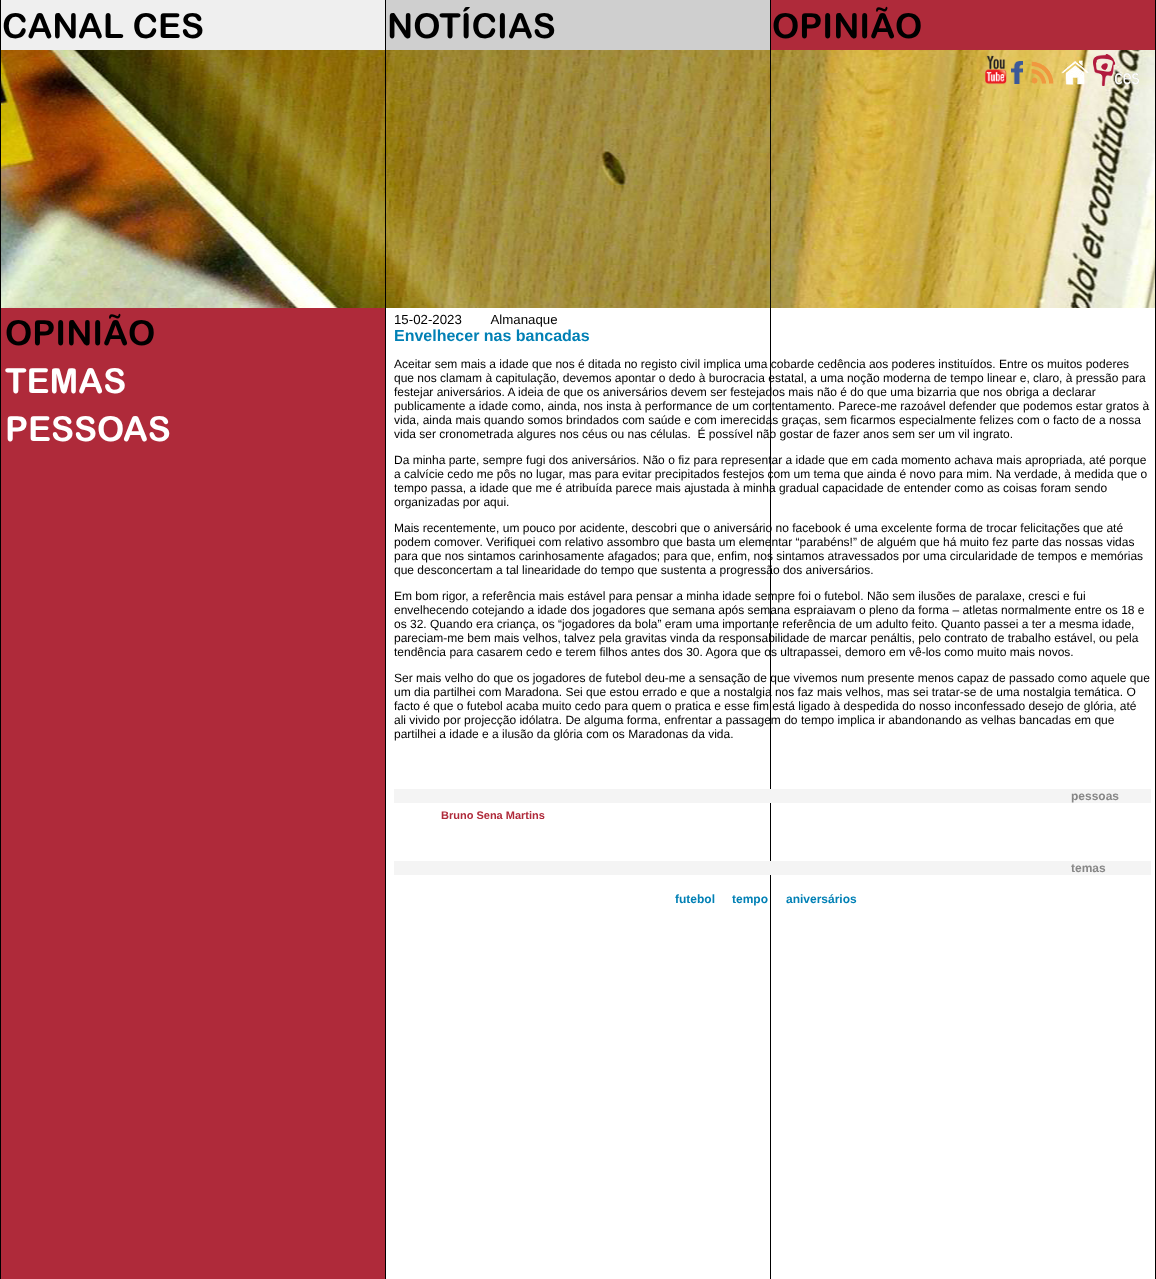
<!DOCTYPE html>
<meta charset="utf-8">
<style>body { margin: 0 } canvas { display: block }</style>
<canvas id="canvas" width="1156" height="1279"></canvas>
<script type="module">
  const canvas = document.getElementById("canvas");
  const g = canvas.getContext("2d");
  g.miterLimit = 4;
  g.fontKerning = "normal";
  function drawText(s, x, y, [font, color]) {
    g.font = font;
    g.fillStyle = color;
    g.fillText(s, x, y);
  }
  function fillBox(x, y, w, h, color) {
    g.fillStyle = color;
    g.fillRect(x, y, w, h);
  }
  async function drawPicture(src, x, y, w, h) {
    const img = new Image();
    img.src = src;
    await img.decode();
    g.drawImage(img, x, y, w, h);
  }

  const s1 = ["bold 34.5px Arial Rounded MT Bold", "#000000"];
  const s2 = ["bold 34.5px Arial Rounded MT Bold", "#FFFFFF"];
  const s3 = ["13.25px Liberation Sans", "#000000"];
  const s4 = ["bold 16px Liberation Sans", "#0180B5"];
  const s5 = ["12px Liberation Sans", "#000000"];
  const s6 = ["bold 12px Liberation Sans", "#878787"];
  const s7 = ["bold 11px Liberation Sans", "#AF2A3A"];
  const s8 = ["bold 12px Liberation Sans", "#0180B5"];

  fillBox(0, 0, 1156, 1279, "#EFEFEF");
  fillBox(0, 0, 1, 1279, "#000000");
  fillBox(386, 0, 384, 50, "#CFCFCF");
  await drawPicture("pic1.png", 1, 50, 1154, 258);
  fillBox(385, 0, 1, 1279, "#000000");
  fillBox(771, 0, 384, 50, "#AF2A3A");
  fillBox(1155, 0, 1, 1279, "#000000");
  fillBox(386, 308, 769, 971, "#FFFFFF");
  fillBox(770, 0, 1, 1279, "#000000");
  drawText("CANAL CES", 2, 38, s1);
  drawText("NOTÍCIAS", 387, 38, s1);
  drawText("OPINIÃO", 772, 38, s1);
  await drawPicture("pic2.png", 985, 55, 22, 30);
  await drawPicture("pic3.png", 1011, 61, 12, 23);
  await drawPicture("pic4.png", 1031, 61, 23, 23);
  await drawPicture("pic5.png", 1061, 60, 28, 25);
  await drawPicture("pic6.png", 1093, 54, 46, 32);
  fillBox(1, 308, 384, 971, "#AF2A3A");
  drawText("OPINIÃO", 5, 345, s1);
  drawText("TEMAS", 5, 393, s2);
  drawText("PESSOAS", 5, 441, s2);
  drawText("15-02-2023        Almanaque", 394, 324, s3);
  drawText("Envelhecer nas bancadas", 394, 341, s4);
  drawText("Aceitar sem mais a idade que nos é ditada no registo civil implica uma cobarde cedência aos poderes instituídos. Entre os muitos poderes", 394, 368, s5);
  drawText("que nos clamam à capitulação, devemos apontar o dedo à burocracia estatal, a uma noção moderna de tempo linear e, claro, à pressão para", 394, 382, s5);
  drawText("festejar aniversários. A ideia de que os aniversários devem ser festejados mais não é do que uma bizarria que nos obriga a declarar", 394, 396, s5);
  drawText("publicamente a idade como, ainda, nos insta à performance de um contentamento. Parece-me razoável defender que podemos estar gratos à", 394, 410, s5);
  drawText("vida, ainda mais quando somos brindados com saúde e com imerecidas graças, sem ficarmos especialmente felizes com o facto de a nossa", 394, 424, s5);
  drawText("vida ser cronometrada algures nos céus ou nas células.  É possível não gostar de fazer anos sem ser um vil ingrato.", 394, 438, s5);
  drawText("Da minha parte, sempre fugi dos aniversários. Não o fiz para representar a idade que em cada momento achava mais apropriada, até porque", 394, 464, s5);
  drawText("a calvície cedo me pôs no lugar, mas para evitar precipitados festejos com um tema que ainda é novo para mim. Na verdade, à medida que o", 394, 478, s5);
  drawText("tempo passa, a idade que me é atribuída parece mais ajustada à minha gradual capacidade de entender como as coisas foram sendo", 394, 492, s5);
  drawText("organizadas por aqui.", 394, 506, s5);
  drawText("Mais recentemente, um pouco por acidente, descobri que o aniversário no facebook é uma excelente forma de trocar felicitações que até", 394, 532, s5);
  drawText("podem comover. Verifiquei com relativo assombro que basta um elementar “parabéns!” de alguém que há muito fez parte das nossas vidas", 394, 546, s5);
  drawText("para que nos sintamos carinhosamente afagados; para que, enfim, nos sintamos atravessados por uma circularidade de tempos e memórias", 394, 560, s5);
  drawText("que desconcertam a tal linearidade do tempo que sustenta a progressão dos aniversários.", 394, 574, s5);
  drawText("Em bom rigor, a referência mais estável para pensar a minha idade sempre foi o futebol. Não sem ilusões de paralaxe, cresci e fui", 394, 600, s5);
  drawText("envelhecendo cotejando a idade dos jogadores que semana após semana espraiavam o pleno da forma – atletas normalmente entre os 18 e", 394, 614, s5);
  drawText("os 32. Quando era criança, os “jogadores da bola” eram uma importante referência de um adulto feito. Quanto passei a ter a mesma idade,", 394, 628, s5);
  drawText("pareciam-me bem mais velhos, talvez pela gravitas vinda da responsabilidade de marcar penáltis, pelo contrato de trabalho estável, ou pela", 394, 642, s5);
  drawText("tendência para casarem cedo e terem filhos antes dos 30. Agora que os ultrapassei, demoro em vê-los como muito mais novos.", 394, 656, s5);
  drawText("Ser mais velho do que os jogadores de futebol deu-me a sensação de que vivemos num presente menos capaz de passado como aquele que", 394, 682, s5);
  drawText("um dia partilhei com Maradona. Sei que estou errado e que a nostalgia nos faz mais velhos, mas sei tratar-se de uma nostalgia temática. O", 394, 696, s5);
  drawText("facto é que o futebol acaba muito cedo para quem o pratica e esse fim está ligado à despedida do nosso inconfessado desejo de glória, até", 394, 710, s5);
  drawText("ali vivido por projecção idólatra. De alguma forma, enfrentar a passagem do tempo implica ir abandonando as velhas bancadas em que", 394, 724, s5);
  drawText("partilhei a idade e a ilusão da glória com os Maradonas da vida.", 394, 738, s5);
  fillBox(394, 789, 757, 14, "#F4F4F4");
  drawText("pessoas", 1071, 800, s6);
  drawText("Bruno Sena Martins", 441, 819, s7);
  fillBox(394, 861, 757, 14, "#F4F4F4");
  drawText("temas", 1071, 872, s6);
  drawText("futebol", 675, 903, s8);
  drawText("tempo", 732, 903, s8);
  drawText("aniversários", 786, 903, s8);
</script>
